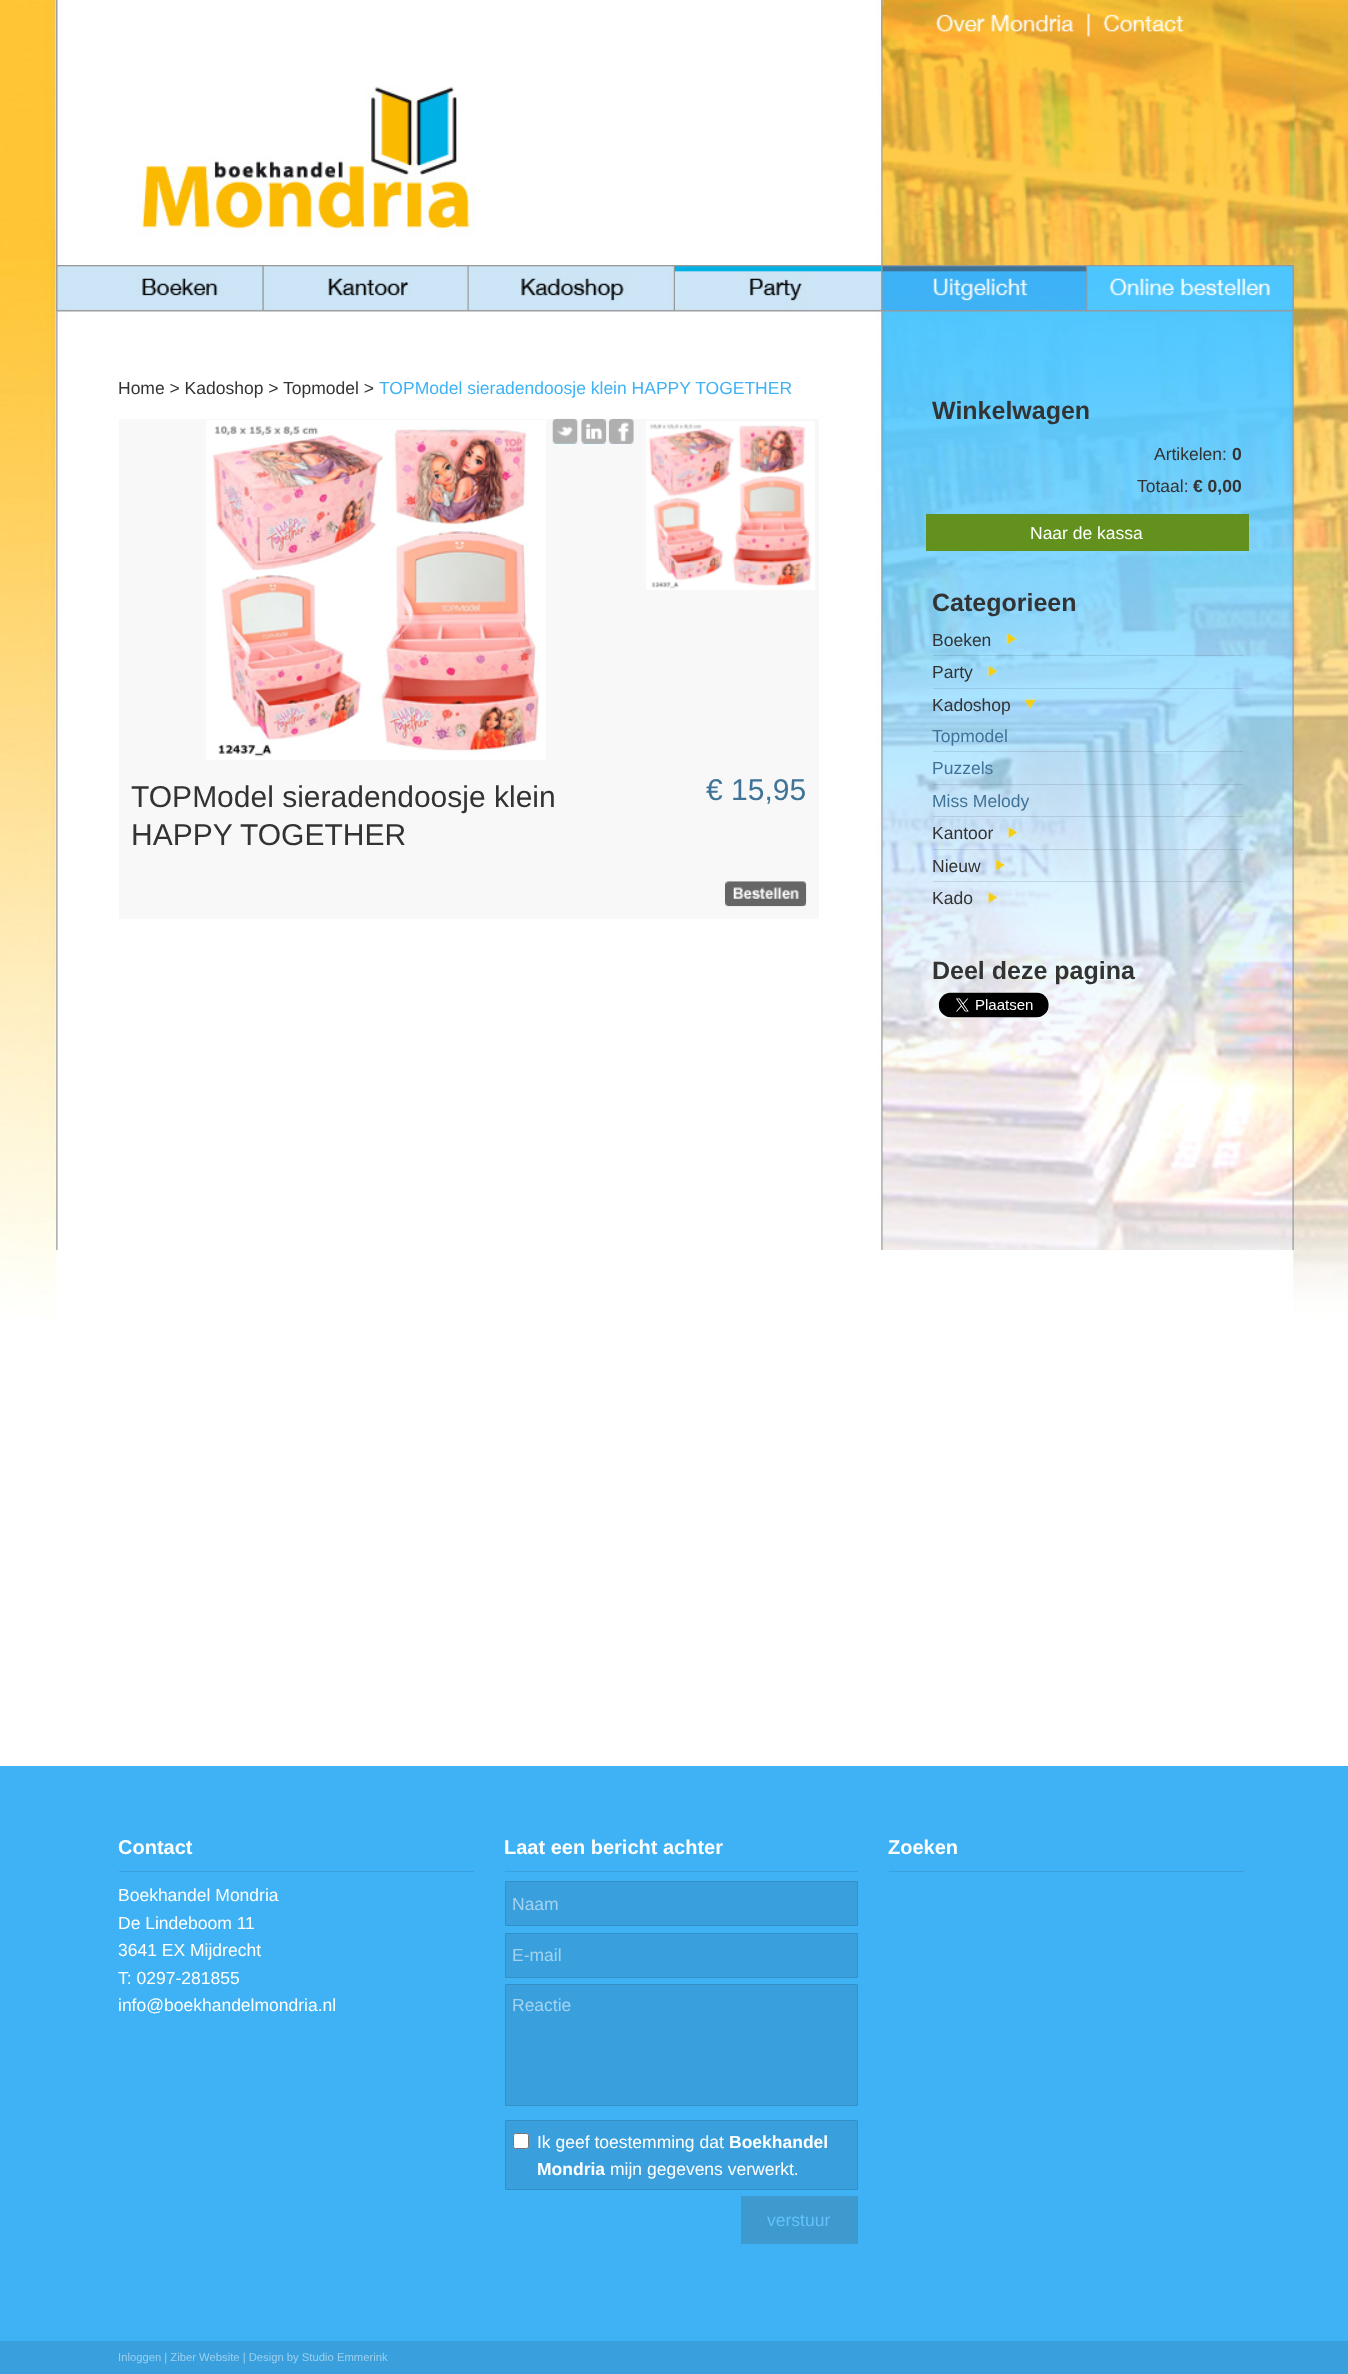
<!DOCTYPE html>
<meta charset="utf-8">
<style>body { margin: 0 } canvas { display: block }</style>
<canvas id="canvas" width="1348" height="2374"></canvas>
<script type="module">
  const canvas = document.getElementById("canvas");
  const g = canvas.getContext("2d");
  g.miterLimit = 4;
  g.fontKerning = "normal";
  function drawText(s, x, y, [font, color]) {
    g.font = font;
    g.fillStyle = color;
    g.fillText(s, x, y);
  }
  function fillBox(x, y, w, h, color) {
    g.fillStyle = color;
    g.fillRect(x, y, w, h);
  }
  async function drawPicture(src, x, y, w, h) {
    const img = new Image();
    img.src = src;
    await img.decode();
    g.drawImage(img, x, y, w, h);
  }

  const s1 = ["17.5px Liberation Sans", "#333333"];
  const s2 = ["17.5px Liberation Sans", "#3FB2F5"];
  const s3 = ["30px Liberation Sans", "#333333"];
  const s4 = ["30px Liberation Sans", "#3F7398"];
  const s5 = ["bold 25px Liberation Sans", "#333333"];
  const s6 = ["bold 17.5px Liberation Sans", "#333333"];
  const s7 = ["17.5px Liberation Sans", "#FFFFFF"];
  const s8 = ["17.5px Liberation Sans", "#3F7398"];
  const s9 = ["bold 20px Liberation Sans", "#FFFFFF"];
  const s10 = ["17.5px Liberation Sans", "#A4D3EF"];
  const s11 = ["bold 17.5px Liberation Sans", "#FFFFFF"];
  const s12 = ["17.5px Liberation Sans", "#65C1F7"];
  const s13 = ["11.25px Liberation Sans", "#9CD0EE"];

  fillBox(0, 0, 1348, 2374, "#FFFFFF");
  await drawPicture("pic1.png", 0, 0, 1348, 1317);
  await drawPicture("pic2.png", 56, 0, 1238, 1250);
  await drawPicture("pic3.png", 56, 0, 1, 47);
  await drawPicture("pic4.png", 880, 0, 2, 47);
  await drawPicture("pic5.png", 881, 0, 200, 47);
  await drawPicture("pic6.png", 1087, 0, 207, 47);
  await drawPicture("pic7.png", 56, 46, 1238, 219);
  await drawPicture("pic8.png", 56, 265, 207, 47);
  await drawPicture("pic9.png", 262, 265, 207, 47);
  await drawPicture("pic10.png", 468, 265, 207, 47);
  await drawPicture("pic11.png", 675, 265, 207, 47);
  await drawPicture("pic12.png", 881, 265, 207, 47);
  await drawPicture("pic13.png", 1087, 265, 207, 47);
  drawText("Home > Kadoshop > Topmodel >", 118, 394, s1);
  drawText("TOPModel sieradendoosje klein HAPPY TOGETHER", 379, 394, s2);
  fillBox(119, 419, 700, 500, "#F8F8F8");
  await drawPicture("pic14.png", 206, 420, 340, 340);
  await drawPicture("pic15.png", 552, 418, 26, 26);
  await drawPicture("pic16.png", 581, 418, 26, 26);
  await drawPicture("pic17.png", 608, 418, 26, 26);
  await drawPicture("pic18.png", 646, 421, 169, 169);
  drawText("TOPModel sieradendoosje klein", 131, 807, s3);
  drawText("HAPPY TOGETHER", 131, 845, s3);
  drawText("€ 15,95", 706, 800, s4);
  await drawPicture("pic19.png", 725, 881, 82, 26);
  drawText("Winkelwagen", 932, 419, s5);
  drawText("Artikelen:", 1154, 460, s1);
  drawText("0", 1232, 460, s6);
  drawText("Totaal:", 1137, 492, s1);
  drawText("€ 0,00", 1193, 492, s6);
  fillBox(926, 514, 323, 37, "#62911E");
  drawText("Naar de kassa", 1030, 539, s7);
  drawText("Categorieen", 932, 611, s5);
  drawText("Boeken", 932, 646, s1);
  await drawPicture("pic20.png", 1006, 633, 11, 12);
  fillBox(933, 655, 310, 1, "rgba(0, 0, 0, 0.1)");
  drawText("Party", 932, 678, s1);
  await drawPicture("pic21.png", 987, 665, 11, 12);
  fillBox(933, 688, 310, 1, "rgba(0, 0, 0, 0.1)");
  drawText("Kadoshop", 932, 711, s1);
  await drawPicture("pic22.png", 1024, 698, 12, 11);
  drawText("Topmodel", 932, 742, s8);
  fillBox(933, 751, 310, 1, "rgba(0, 0, 0, 0.1)");
  drawText("Puzzels", 932, 774, s8);
  fillBox(933, 784, 310, 1, "rgba(0, 0, 0, 0.1)");
  drawText("Miss Melody", 932, 807, s8);
  fillBox(933, 816, 310, 1, "rgba(0, 0, 0, 0.1)");
  drawText("Kantoor", 932, 839, s1);
  await drawPicture("pic23.png", 1007, 826, 11, 13);
  fillBox(933, 849, 310, 1, "rgba(0, 0, 0, 0.1)");
  drawText("Nieuw", 932, 872, s1);
  await drawPicture("pic24.png", 995, 859, 11, 12);
  fillBox(933, 881, 310, 1, "rgba(0, 0, 0, 0.1)");
  drawText("Kado", 932, 904, s1);
  await drawPicture("pic25.png", 987, 891, 11, 13);
  drawText("Deel deze pagina", 932, 979, s5);
  await drawPicture("pic26.png", 938, 992, 111, 26);
  fillBox(0, 1766, 1348, 575, "#3FB2F5");
  drawText("Contact", 118, 1854, s9);
  fillBox(119, 1871, 355, 1, "#39A0DD");
  drawText("Boekhandel Mondria", 118, 1901, s7);
  drawText("De Lindeboom 11", 118, 1929, s7);
  drawText("3641 EX Mijdrecht", 118, 1956, s7);
  drawText("T: 0297-281855", 118, 1984, s7);
  drawText("info@boekhandelmondria.nl", 118, 2011, s7);
  drawText("Laat een bericht achter", 504, 1854, s9);
  fillBox(505, 1871, 353, 1, "#39A0DD");
  g.beginPath();
  g.rect(505.5, 1881.5, 352, 44);
  g.fill();
  g.strokeStyle = "#3390C7";
  g.stroke();
  drawText("Naam", 512, 1910, s10);
  g.fillStyle = "#39A0DD";
  g.beginPath();
  g.rect(505.5, 1933.5, 352, 44);
  g.fill();
  g.stroke();
  drawText("E-mail", 512, 1961, s10);
  g.fillStyle = "#39A0DD";
  g.beginPath();
  g.rect(505.5, 1984.5, 352, 121);
  g.fill();
  g.stroke();
  drawText("Reactie", 512, 2011, s10);
  g.fillStyle = "#39A0DD";
  g.beginPath();
  g.rect(505.5, 2120.5, 352, 69);
  g.fill();
  g.stroke();
  g.fillStyle = "#FFFFFF";
  g.beginPath();
  g.roundRect(513.5, 2133.5, 15, 15, 2);
  g.fill();
  g.strokeStyle = "#767676";
  g.stroke();
  drawText("Ik geef toestemming dat", 537, 2148, s7);
  drawText("Boekhandel", 729, 2148, s11);
  drawText("Mondria", 537, 2175, s11);
  drawText("mijn gegevens verwerkt.", 610, 2175, s7);
  fillBox(741, 2196, 117, 48, "#3D99CE");
  drawText("verstuur", 767, 2226, s12);
  drawText("Zoeken", 888, 1854, s9);
  fillBox(889, 1871, 355, 1, "#39A0DD");
  fillBox(0, 2341, 1348, 33, "#39A0DD");
  drawText("Inloggen | Ziber Website | Design by Studio Emmerink", 118, 2361, s13);
</script>
